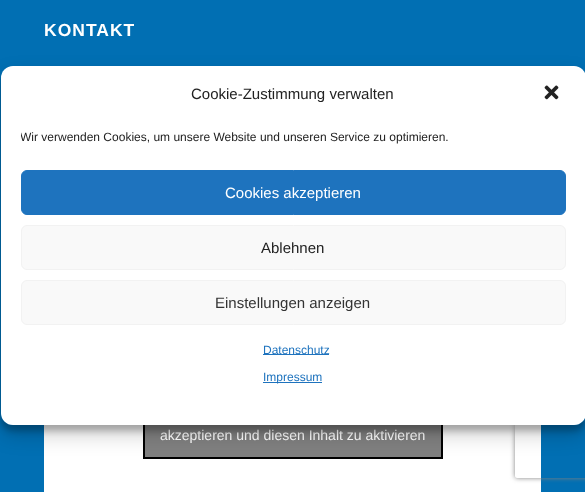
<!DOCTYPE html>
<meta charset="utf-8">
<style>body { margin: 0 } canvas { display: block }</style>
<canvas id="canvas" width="585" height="492"></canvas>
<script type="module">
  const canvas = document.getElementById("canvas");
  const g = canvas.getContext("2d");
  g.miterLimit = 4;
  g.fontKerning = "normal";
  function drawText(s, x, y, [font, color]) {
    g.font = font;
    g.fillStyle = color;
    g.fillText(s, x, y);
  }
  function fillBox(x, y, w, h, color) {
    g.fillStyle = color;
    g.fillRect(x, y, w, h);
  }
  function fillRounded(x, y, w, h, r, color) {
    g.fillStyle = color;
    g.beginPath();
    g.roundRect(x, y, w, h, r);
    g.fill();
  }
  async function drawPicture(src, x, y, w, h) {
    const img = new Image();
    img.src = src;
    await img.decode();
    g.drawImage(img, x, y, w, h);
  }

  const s1 = ["bold 17.5px Liberation Sans", "#FFFFFF"];
  const s2 = ["14px Liberation Sans", "#FFFFFF"];
  const s3 = ["15px Liberation Sans", "#222222"];
  const s4 = ["12px Liberation Sans", "#222222"];
  const s5 = ["15px Liberation Sans", "#FFFFFF"];
  const s6 = ["15px Liberation Sans", "#333333"];
  const s7 = ["12px Liberation Sans", "#1E73BE"];

  fillBox(0, 0, 585, 492, "#016FB3");
  g.letterSpacing = "1px";
  drawText("KONTAKT", 44, 36, s1);
  fillBox(44, 425, 497, 67, "#FFFFFF");
  fillBox(145, 425, 296, 32, "#808080");
  g.strokeStyle = "#000000";
  g.lineWidth = 2;
  g.strokeRect(144, 390, 298, 68);
  g.letterSpacing = "0px";
  drawText("akzeptieren und diesen Inhalt zu aktivieren", 160, 440, s2);
  g.save();
  g.beginPath();
  g.moveTo(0, 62);
  g.lineTo(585, 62);
  g.lineTo(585, 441);
  g.lineTo(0, 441);
  g.closePath();
  g.moveTo(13, 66);
  g.lineTo(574, 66);
  g.bezierCurveTo(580.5, 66, 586, 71.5, 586, 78);
  g.lineTo(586, 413);
  g.bezierCurveTo(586, 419.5, 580.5, 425, 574, 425);
  g.lineTo(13, 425);
  g.bezierCurveTo(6.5, 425, 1, 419.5, 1, 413);
  g.lineTo(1, 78);
  g.bezierCurveTo(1, 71.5, 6.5, 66, 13, 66);
  g.closePath();
  g.clip("evenodd");
  g.fillStyle = "rgba(0, 0, 0, 0.23)";
  g.filter = "blur(3px)";
  g.beginPath();
  g.roundRect(1, 72, 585, 359, 12);
  g.fill();
  g.filter = "none";
  g.restore();
  g.save();
  g.beginPath();
  g.moveTo(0, 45);
  g.lineTo(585, 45);
  g.lineTo(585, 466);
  g.lineTo(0, 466);
  g.closePath();
  g.moveTo(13, 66);
  g.lineTo(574, 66);
  g.bezierCurveTo(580.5, 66, 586, 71.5, 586, 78);
  g.lineTo(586, 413);
  g.bezierCurveTo(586, 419.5, 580.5, 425, 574, 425);
  g.lineTo(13, 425);
  g.bezierCurveTo(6.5, 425, 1, 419.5, 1, 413);
  g.lineTo(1, 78);
  g.bezierCurveTo(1, 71.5, 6.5, 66, 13, 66);
  g.closePath();
  g.clip("evenodd");
  g.fillStyle = "rgba(0, 0, 0, 0.19)";
  g.filter = "blur(10px)";
  g.beginPath();
  g.roundRect(1, 76, 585, 359, 12);
  g.fill();
  g.filter = "none";
  g.restore();
  g.save();
  g.beginPath();
  g.moveTo(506, 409);
  g.lineTo(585, 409);
  g.lineTo(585, 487);
  g.lineTo(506, 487);
  g.closePath();
  g.moveTo(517, 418);
  g.lineTo(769, 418);
  g.bezierCurveTo(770, 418, 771, 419, 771, 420);
  g.lineTo(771, 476);
  g.bezierCurveTo(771, 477, 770, 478, 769, 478);
  g.lineTo(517, 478);
  g.bezierCurveTo(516, 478, 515, 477, 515, 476);
  g.lineTo(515, 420);
  g.bezierCurveTo(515, 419, 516, 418, 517, 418);
  g.closePath();
  g.clip("evenodd");
  g.fillStyle = "#808080";
  g.filter = "blur(2.5px)";
  g.beginPath();
  g.roundRect(515, 418, 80, 60, 2);
  g.fill();
  g.filter = "none";
  g.restore();
  fillRounded(1, 66, 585, 359, 12, "#FFFFFF");
  drawText("Cookie-Zustimmung verwalten", 191, 99, s3);
  await drawPicture("pic1.png", 544, 85, 15, 15);
  g.save();
  g.beginPath();
  g.rect(21, 127, 545, 23);
  g.clip();
  drawText("Wir verwenden Cookies, um unsere Website und unseren Service zu optimieren.", 20, 141, s4);
  g.restore();
  g.fillStyle = "#1E73BE";
  g.beginPath();
  g.roundRect(21.5, 170.5, 544, 44, 5.5);
  g.fill();
  g.strokeStyle = "#1E73BE";
  g.lineWidth = 1;
  g.stroke();
  drawText("Cookies akzeptieren", 225, 198, s5);
  g.fillStyle = "#F9F9F9";
  g.beginPath();
  g.roundRect(21.5, 225.5, 544, 44, 5.5);
  g.fill();
  g.strokeStyle = "#F2F2F2";
  g.stroke();
  drawText("Ablehnen", 261, 253, s3);
  g.fillStyle = "#F9F9F9";
  g.beginPath();
  g.roundRect(21.5, 280.5, 544, 44, 5.5);
  g.fill();
  g.stroke();
  drawText("Einstellungen anzeigen", 215, 308, s6);
  fillBox(263, 354, 66, 1, "#1E73BE");
  drawText("Datenschutz", 263, 354, s7);
  fillBox(263, 382, 59, 1, "#1E73BE");
  drawText("Impressum", 263, 381, s7);
</script>
